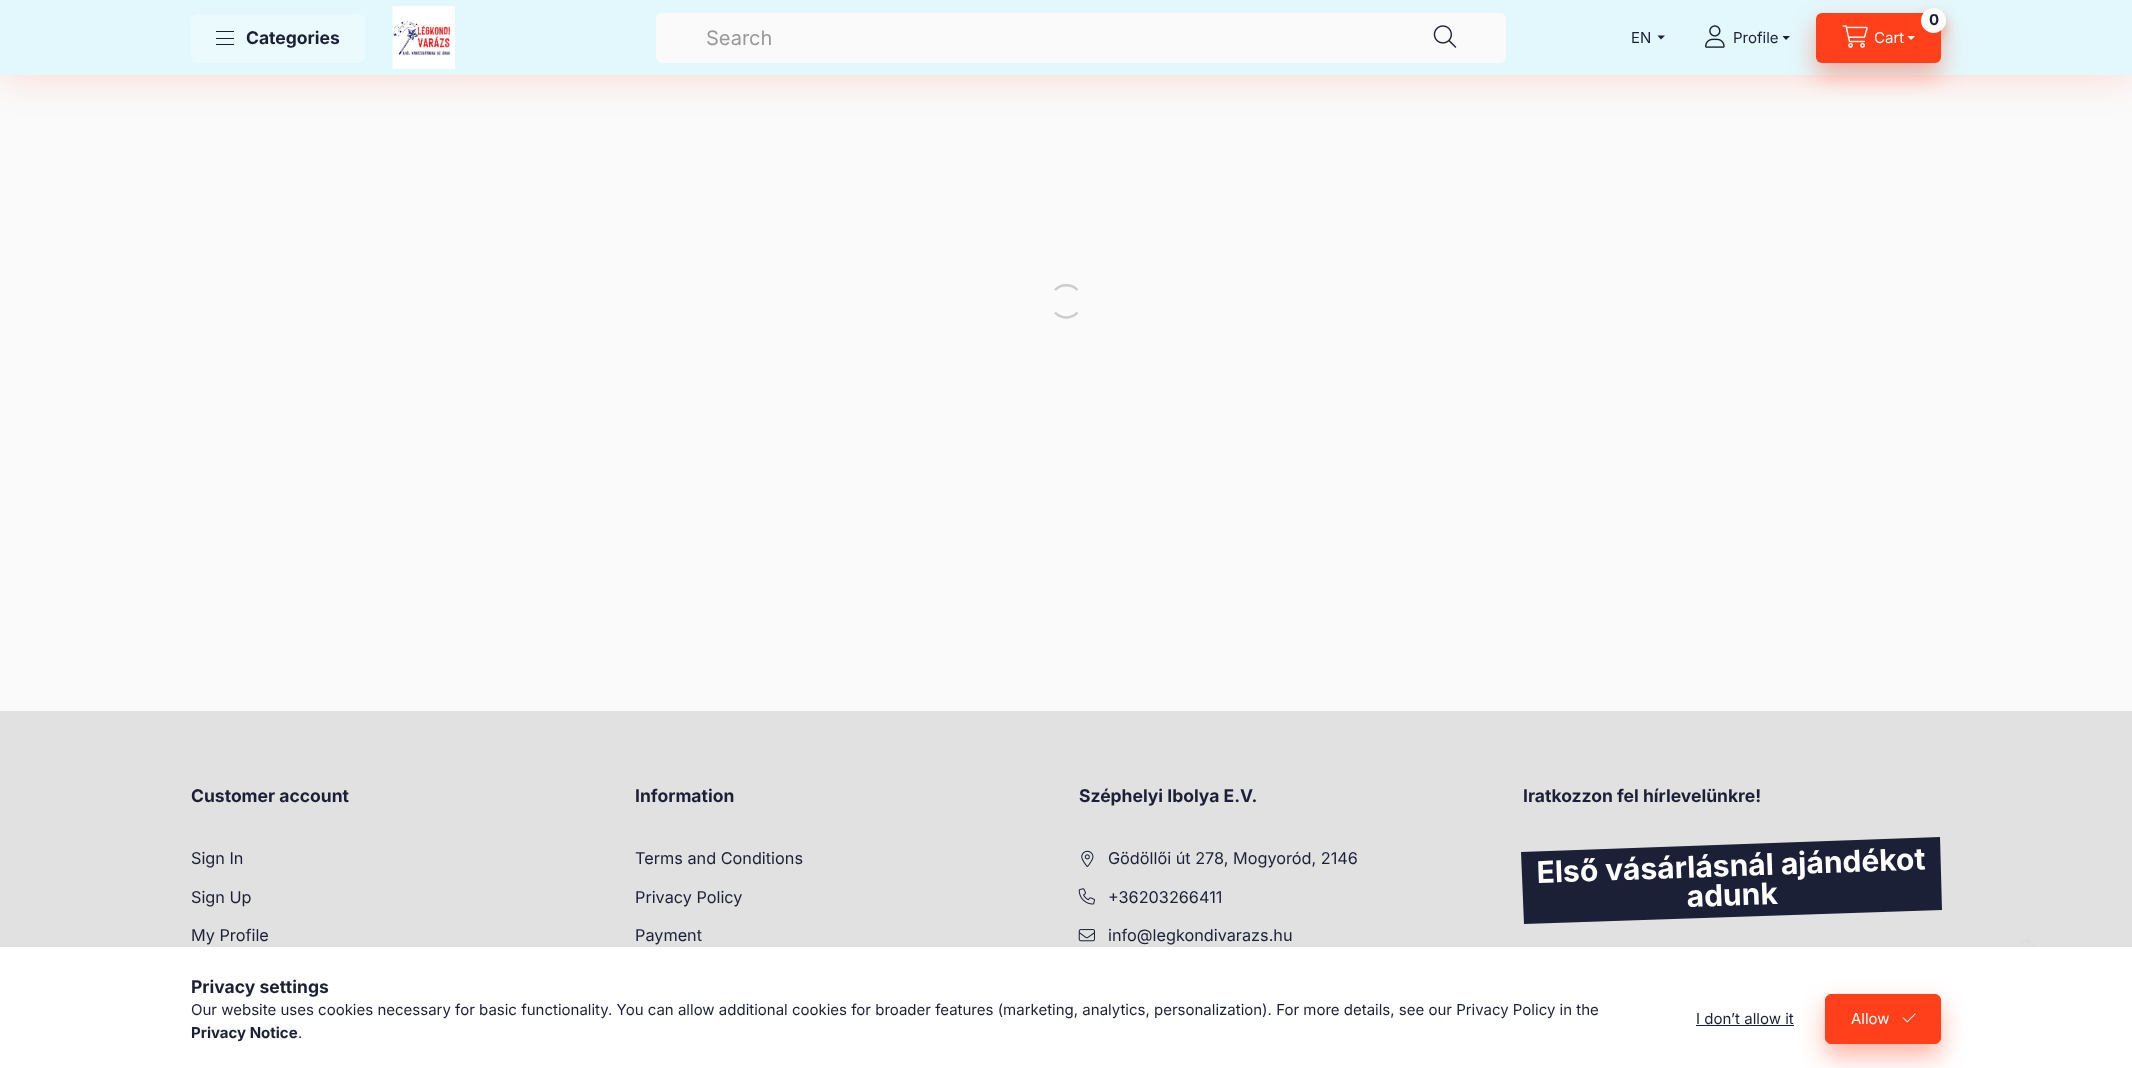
<!DOCTYPE html>
<meta charset="utf-8">
<style>body { margin: 0 } canvas { display: block }</style>
<canvas id="canvas" width="2132" height="1068"></canvas>
<script type="module">
  const canvas = document.getElementById("canvas");
  const g = canvas.getContext("2d");
  g.miterLimit = 4;
  g.fontKerning = "normal";
  function drawText(s, x, y, [font, color]) {
    g.font = font;
    g.fillStyle = color;
    g.fillText(s, x, y);
  }
  function fillBox(x, y, w, h, color) {
    g.fillStyle = color;
    g.fillRect(x, y, w, h);
  }
  function fillRounded(x, y, w, h, r, color) {
    g.fillStyle = color;
    g.beginPath();
    g.roundRect(x, y, w, h, r);
    g.fill();
  }
  async function drawPicture(src, x, y, w, h) {
    const img = new Image();
    img.src = src;
    await img.decode();
    g.drawImage(img, x, y, w, h);
  }

  const s1 = ["bold 17.5px Inter", "#1B2036"];
  const s2 = ["20px Inter", "#999999"];
  const s3 = ["15px Inter", "#1B2036"];
  const s4 = ["bold 15px Inter", "#1B2036"];
  const s5 = ["15px Inter", "#FFFFFF"];
  const s6 = ["16.25px Inter", "#1B2036"];

  fillBox(0, 0, 2132, 1068, "#FAFAFA");
  g.fillStyle = "rgba(255, 64, 27, 0.2)";
  g.filter = "blur(19px)";
  g.beginPath();
  g.rect(0, 0, 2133, 75);
  g.fill();
  g.filter = "none";
  fillBox(0, 0, 2132, 75, "#E3F8FC");
  fillRounded(191, 14, 174, 49, 6, "#EBFAFD");
  fillBox(216, 31, 18, 1, "#1B2036");
  fillBox(216, 38, 18, 1, "#1B2036");
  fillBox(216, 44, 18, 1, "#1B2036");
  drawText("Categories", 246, 44, s1);
  await drawPicture("pic1.png", 392, 6, 63, 63);
  fillRounded(656, 13, 850, 50, 6, "#FAFAFA");
  drawText("Search", 706, 45, s2);
  await drawPicture("pic2.png", 1433, 25, 24, 23);
  drawText("EN", 1631, 43, s3);
  g.beginPath();
  g.moveTo(1657.5, 35.5);
  g.lineTo(1665, 35.5);
  g.lineTo(1661, 39.5);
  g.closePath();
  g.fill();
  await drawPicture("pic3.png", 1705, 25, 20, 23);
  g.fillStyle = "rgba(255, 64, 27, 0.4)";
  g.filter = "blur(12.5px)";
  g.beginPath();
  g.roundRect(1816, 25, 125, 50, 6);
  g.fill();
  g.filter = "none";
  drawText("Profile", 1733, 43, s3);
  g.beginPath();
  g.moveTo(1782.5, 36);
  g.lineTo(1790, 36);
  g.lineTo(1786, 40);
  g.closePath();
  g.fill();
  fillRounded(1816, 13, 125, 50, 6, "#FF401B");
  g.fillStyle = "rgba(255, 64, 27, 0.4)";
  g.filter = "blur(6px)";
  g.beginPath();
  g.roundRect(1921, 14, 25, 25, 12.5);
  g.fill();
  g.filter = "none";
  g.fillStyle = "#FFFFFF";
  g.beginPath();
  g.arc(1933.5, 20.5, 12.5, 0, Math.PI * 2);
  g.fill();
  drawText("0", 1929, 25, s4);
  await drawPicture("pic4.png", 1842, 25, 26, 23);
  drawText("Cart", 1874, 43, s5);
  g.beginPath();
  g.moveTo(1907.5, 36);
  g.lineTo(1915, 36);
  g.lineTo(1911, 40);
  g.closePath();
  g.fill();
  g.beginPath();
  g.moveTo(1055, 290);
  g.bezierCurveTo(1061, 283.5, 1071.5, 283.5, 1077.5, 290);
  g.moveTo(1077.5, 312.5);
  g.bezierCurveTo(1071.5, 319, 1061, 319, 1055, 312.5);
  g.strokeStyle = "#CCCCCC";
  g.lineWidth = 2.5;
  g.stroke();
  fillBox(0, 711, 2132, 236, "#E1E1E1");
  drawText("Customer account", 191, 802, s1);
  drawText("Sign In", 191, 864, s6);
  drawText("Sign Up", 191, 903, s6);
  drawText("My Profile", 191, 941, s6);
  drawText("Information", 635, 802, s1);
  drawText("Terms and Conditions", 635, 864, s6);
  drawText("Privacy Policy", 635, 903, s6);
  drawText("Payment", 635, 941, s6);
  drawText("Széphelyi Ibolya E.V.", 1079, 802, s1);
  await drawPicture("pic5.png", 1081, 850, 13, 17);
  drawText("Gödöllői út 278, Mogyoród, 2146", 1108, 864, s6);
  await drawPicture("pic6.png", 1078, 888, 17, 17);
  drawText("+36203266411", 1108, 903, s6);
  await drawPicture("pic7.png", 1078, 929, 17, 13);
  drawText("info@legkondivarazs.hu", 1108, 941, s6);
  drawText("Iratkozzon fel hírlevelünkre!", 1523, 802, s1);
  g.beginPath();
  g.moveTo(1521, 852);
  g.lineTo(1940, 837);
  g.lineTo(1942, 910);
  g.lineTo(1524, 924);
  g.closePath();
  g.fill();
  g.font = "bold 30px Inter";
  g.fillStyle = "#FFFFFF";
  g.save();
  g.translate(1537, 883);
  g.rotate(-2 * Math.PI / 180);
  g.fillText("Első vásárlásnál ajándékot", 0, 0);
  g.restore();
  g.save();
  g.translate(1687, 907);
  g.rotate(-2 * Math.PI / 180);
  g.fillText("adunk", 0, 0);
  g.restore();
  await drawPicture("pic8.png", 2019, 939, 16, 7);
  fillBox(0, 947, 2132, 121, "#FFFFFF");
  drawText("Privacy settings", 191, 993, s1);
  drawText("Our website uses cookies necessary for basic functionality. You can allow additional cookies for broader features (marketing, analytics, personalization). For more details, see our Privacy Policy in the", 191, 1015, s3);
  drawText("Privacy Notice", 191, 1038, s4);
  drawText(".", 298, 1038, s3);
  drawText("I don’t allow it", 1696, 1024, s3);
  fillBox(1696, 1025, 98, 1, "#1B2036");
  g.fillStyle = "rgba(255, 64, 27, 0.4)";
  g.filter = "blur(12.5px)";
  g.beginPath();
  g.roundRect(1825, 1006, 116, 50, 6);
  g.fill();
  g.filter = "none";
  g.fillStyle = "#FF401B";
  g.beginPath();
  g.roundRect(1825.5, 994.5, 115, 49, 5.5);
  g.fill();
  g.strokeStyle = "#FF401B";
  g.lineWidth = 1;
  g.stroke();
  drawText("Allow", 1851, 1024, s5);
  await drawPicture("pic9.png", 1902, 1013, 14, 10);
</script>
